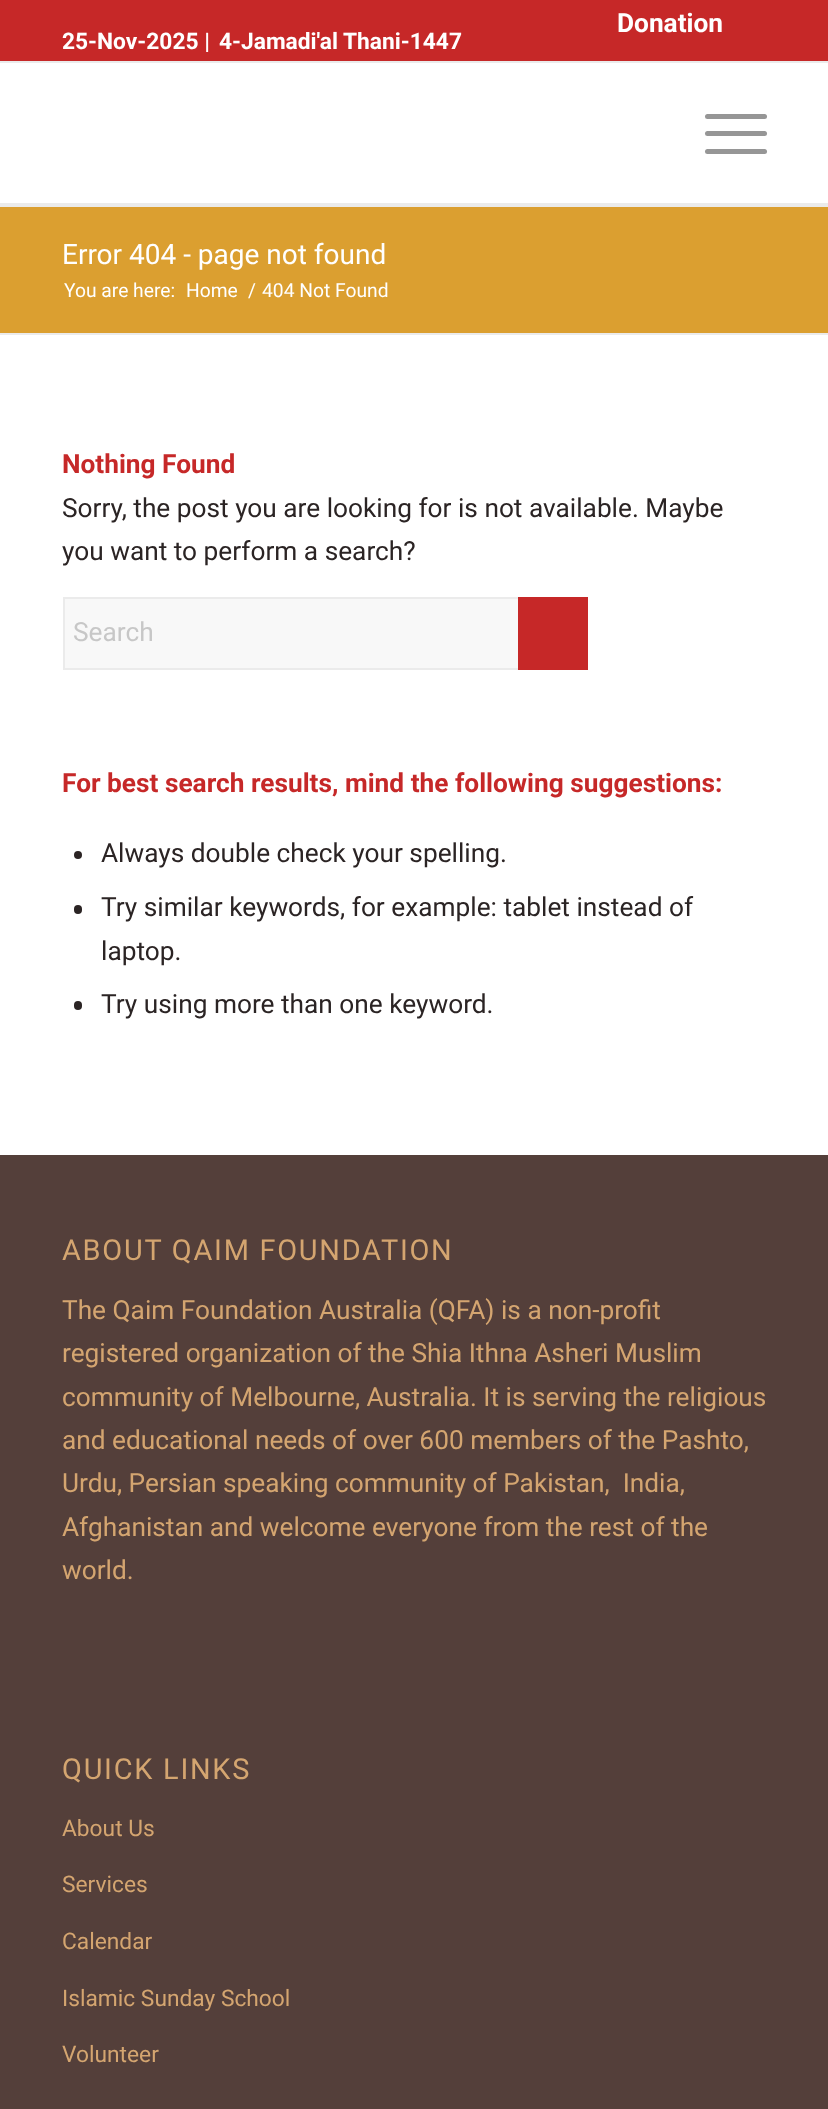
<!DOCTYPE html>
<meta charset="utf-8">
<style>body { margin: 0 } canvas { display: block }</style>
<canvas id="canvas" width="828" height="2109"></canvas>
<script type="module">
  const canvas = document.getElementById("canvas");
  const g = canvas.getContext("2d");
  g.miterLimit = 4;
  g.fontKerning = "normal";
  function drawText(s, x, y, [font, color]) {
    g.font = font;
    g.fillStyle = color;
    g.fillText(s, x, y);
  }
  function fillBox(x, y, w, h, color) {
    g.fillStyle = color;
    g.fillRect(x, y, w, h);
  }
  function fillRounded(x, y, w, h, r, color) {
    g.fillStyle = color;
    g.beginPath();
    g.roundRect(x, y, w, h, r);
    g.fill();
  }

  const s1 = ["bold 26.25px Roboto", "#FFFFFF"];
  const s2 = ["bold 22.75px Roboto", "#FFFFFF"];
  const s3 = ["28px Roboto", "#FFFFFF"];
  const s4 = ["19.25px Roboto", "#FFFFFF"];
  const s5 = ["bold 26.25px Roboto", "#C62828"];
  const s6 = ["26.25px Roboto", "#2B2424"];
  const s7 = ["26.25px Roboto", "#C7C7C7"];
  const s8 = ["28.9px Roboto", "#D4A570"];
  const s9 = ["26.25px Roboto", "#D4A570"];
  const s10 = ["22.75px Roboto", "#D4A570"];

  fillBox(0, 0, 828, 2109, "#FFFFFF");
  fillBox(0, 0, 828, 61, "#C62828");
  fillBox(0, 61, 828, 2, "#EBEBEB");
  drawText("Donation", 617, 32, s1);
  drawText("25-Nov-2025 |", 62, 49, s2);
  drawText("4-Jamadi'al Thani-1447", 219, 49, s2);
  fillRounded(705, 131, 62, 5, 2.5, "#969696");
  fillRounded(705, 114, 62, 5, 2.5, "#969696");
  fillRounded(705, 149, 62, 5, 2.5, "#969696");
  fillBox(0, 207, 828, 126, "#DB9F30");
  fillBox(0, 203, 828, 4, "#EBEBEB");
  drawText("Error 404 - page not found", 62, 264, s3);
  drawText("You are here:", 64, 297, s4);
  drawText("Home", 186, 297, s4);
  drawText("/", 248, 297, s4);
  drawText("404 Not Found", 262, 297, s4);
  fillBox(0, 333, 828, 2, "#EBEBEB");
  drawText("Nothing Found", 62, 473, s5);
  drawText("Sorry, the post you are looking for is not available. Maybe", 62, 517, s6);
  drawText("you want to perform a search?", 62, 560, s6);
  fillBox(65, 599, 453, 69, "#F8F8F8");
  g.strokeStyle = "#EBEBEB";
  g.lineWidth = 2;
  g.strokeRect(64, 598, 523, 71);
  drawText("Search", 73, 641, s7);
  fillBox(518, 597, 70, 73, "#C62828");
  drawText("For best search results, mind the following suggestions:", 62, 792, s5);
  g.fillStyle = "#2B2424";
  g.beginPath();
  g.arc(78, 855, 4, 0, Math.PI * 2);
  g.fill();
  drawText("Always double check your spelling.", 101, 862, s6);
  fillRounded(74, 905, 8, 9, 4, "#2B2424");
  drawText("Try similar keywords, for example: tablet instead of", 101, 916, s6);
  drawText("laptop.", 101, 960, s6);
  fillRounded(74, 1001, 8, 9, 4, "#2B2424");
  drawText("Try using more than one keyword.", 101, 1013, s6);
  fillBox(0, 1155, 828, 954, "#543F3A");
  g.letterSpacing = "1.75px";
  drawText("ABOUT QAIM FOUNDATION", 62, 1260, s8);
  g.letterSpacing = "0px";
  drawText("The Qaim Foundation Australia (QFA) is a non-profit", 62, 1319, s9);
  drawText("registered organization of the Shia Ithna Asheri Muslim", 62, 1362, s9);
  drawText("community of Melbourne, Australia. It is serving the religious", 62, 1406, s9);
  drawText("and educational needs of over 600 members of the Pashto,", 62, 1449, s9);
  drawText("Urdu, Persian speaking community of Pakistan,  India,", 62, 1492, s9);
  drawText("Afghanistan and welcome everyone from the rest of the", 62, 1536, s9);
  drawText("world.", 62, 1579, s9);
  g.letterSpacing = "1.75px";
  drawText("QUICK LINKS", 62, 1779, s8);
  g.letterSpacing = "0px";
  drawText("About Us", 62, 1836, s10);
  drawText("Services", 62, 1892, s10);
  drawText("Calendar", 62, 1949, s10);
  drawText("Islamic Sunday School", 62, 2006, s10);
  drawText("Volunteer", 62, 2062, s10);
</script>
